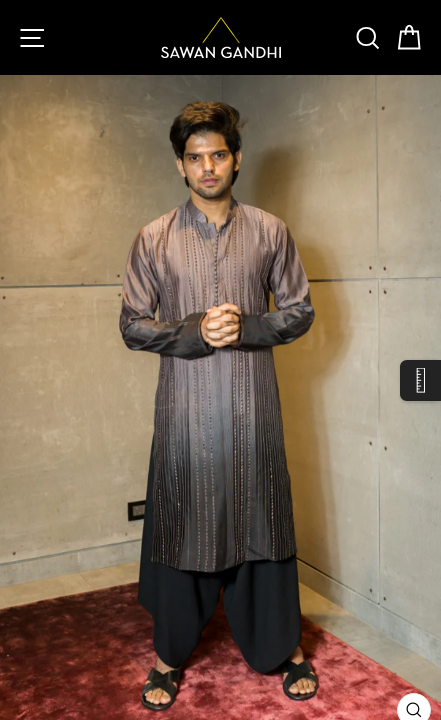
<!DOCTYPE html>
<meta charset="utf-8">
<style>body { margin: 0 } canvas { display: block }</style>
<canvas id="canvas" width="441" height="720"></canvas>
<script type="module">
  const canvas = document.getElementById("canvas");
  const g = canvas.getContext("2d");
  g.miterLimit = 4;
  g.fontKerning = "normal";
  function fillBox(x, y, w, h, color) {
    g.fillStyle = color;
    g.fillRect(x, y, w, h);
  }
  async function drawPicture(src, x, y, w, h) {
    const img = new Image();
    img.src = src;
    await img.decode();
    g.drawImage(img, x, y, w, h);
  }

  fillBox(0, 0, 441, 720, "#000000");
  g.beginPath();
  g.moveTo(20.5, 30);
  g.lineTo(44, 30);
  g.moveTo(20.5, 38);
  g.lineTo(40.5, 38);
  g.moveTo(20.5, 46);
  g.lineTo(44, 46);
  g.strokeStyle = "#FFFFFF";
  g.lineWidth = 1.9;
  g.stroke();
  await drawPicture("pic1.png", 161, 17, 120, 41);
  g.beginPath();
  g.moveTo(375, 36.5);
  g.bezierCurveTo(375, 48, 357.5, 48, 357.5, 36.5);
  g.bezierCurveTo(357.5, 25, 375, 25, 375, 36.5);
  g.closePath();
  g.moveTo(378.5, 48.5);
  g.lineTo(372.5, 42.5);
  g.moveTo(405.5, 35);
  g.bezierCurveTo(405.5, 22.5, 413, 22.5, 413, 35);
  g.stroke();
  g.beginPath();
  g.moveTo(401, 31.5);
  g.lineTo(418, 31.5);
  g.lineTo(419.5, 48.5);
  g.lineTo(399, 48.5);
  g.closePath();
  g.stroke();
  await drawPicture("pic2.png", 0, 75, 441, 645);
  g.fillStyle = "#FFFFFF";
  g.beginPath();
  g.arc(414, 710, 16.5, 0, Math.PI * 2);
  g.fill();
  g.strokeStyle = "#E8E8E1";
  g.lineWidth = 1;
  g.stroke();
  await drawPicture("pic3.png", 406, 702, 16, 16);
  g.fillStyle = "rgba(80, 80, 80, 0.3)";
  g.filter = "blur(1.5px)";
  g.beginPath();
  g.roundRect(400, 360, 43, 43, 8);
  g.fill();
  g.filter = "none";
  g.fillStyle = "#232323";
  g.beginPath();
  g.moveTo(400, 394);
  g.lineTo(400, 367);
  g.bezierCurveTo(400, 363, 403, 360, 407, 360);
  g.lineTo(441, 360);
  g.lineTo(441, 401);
  g.lineTo(407, 401);
  g.bezierCurveTo(403, 401, 400, 398, 400, 394);
  g.closePath();
  g.fill();
  await drawPicture("pic4.png", 416, 368, 9, 25);
</script>
